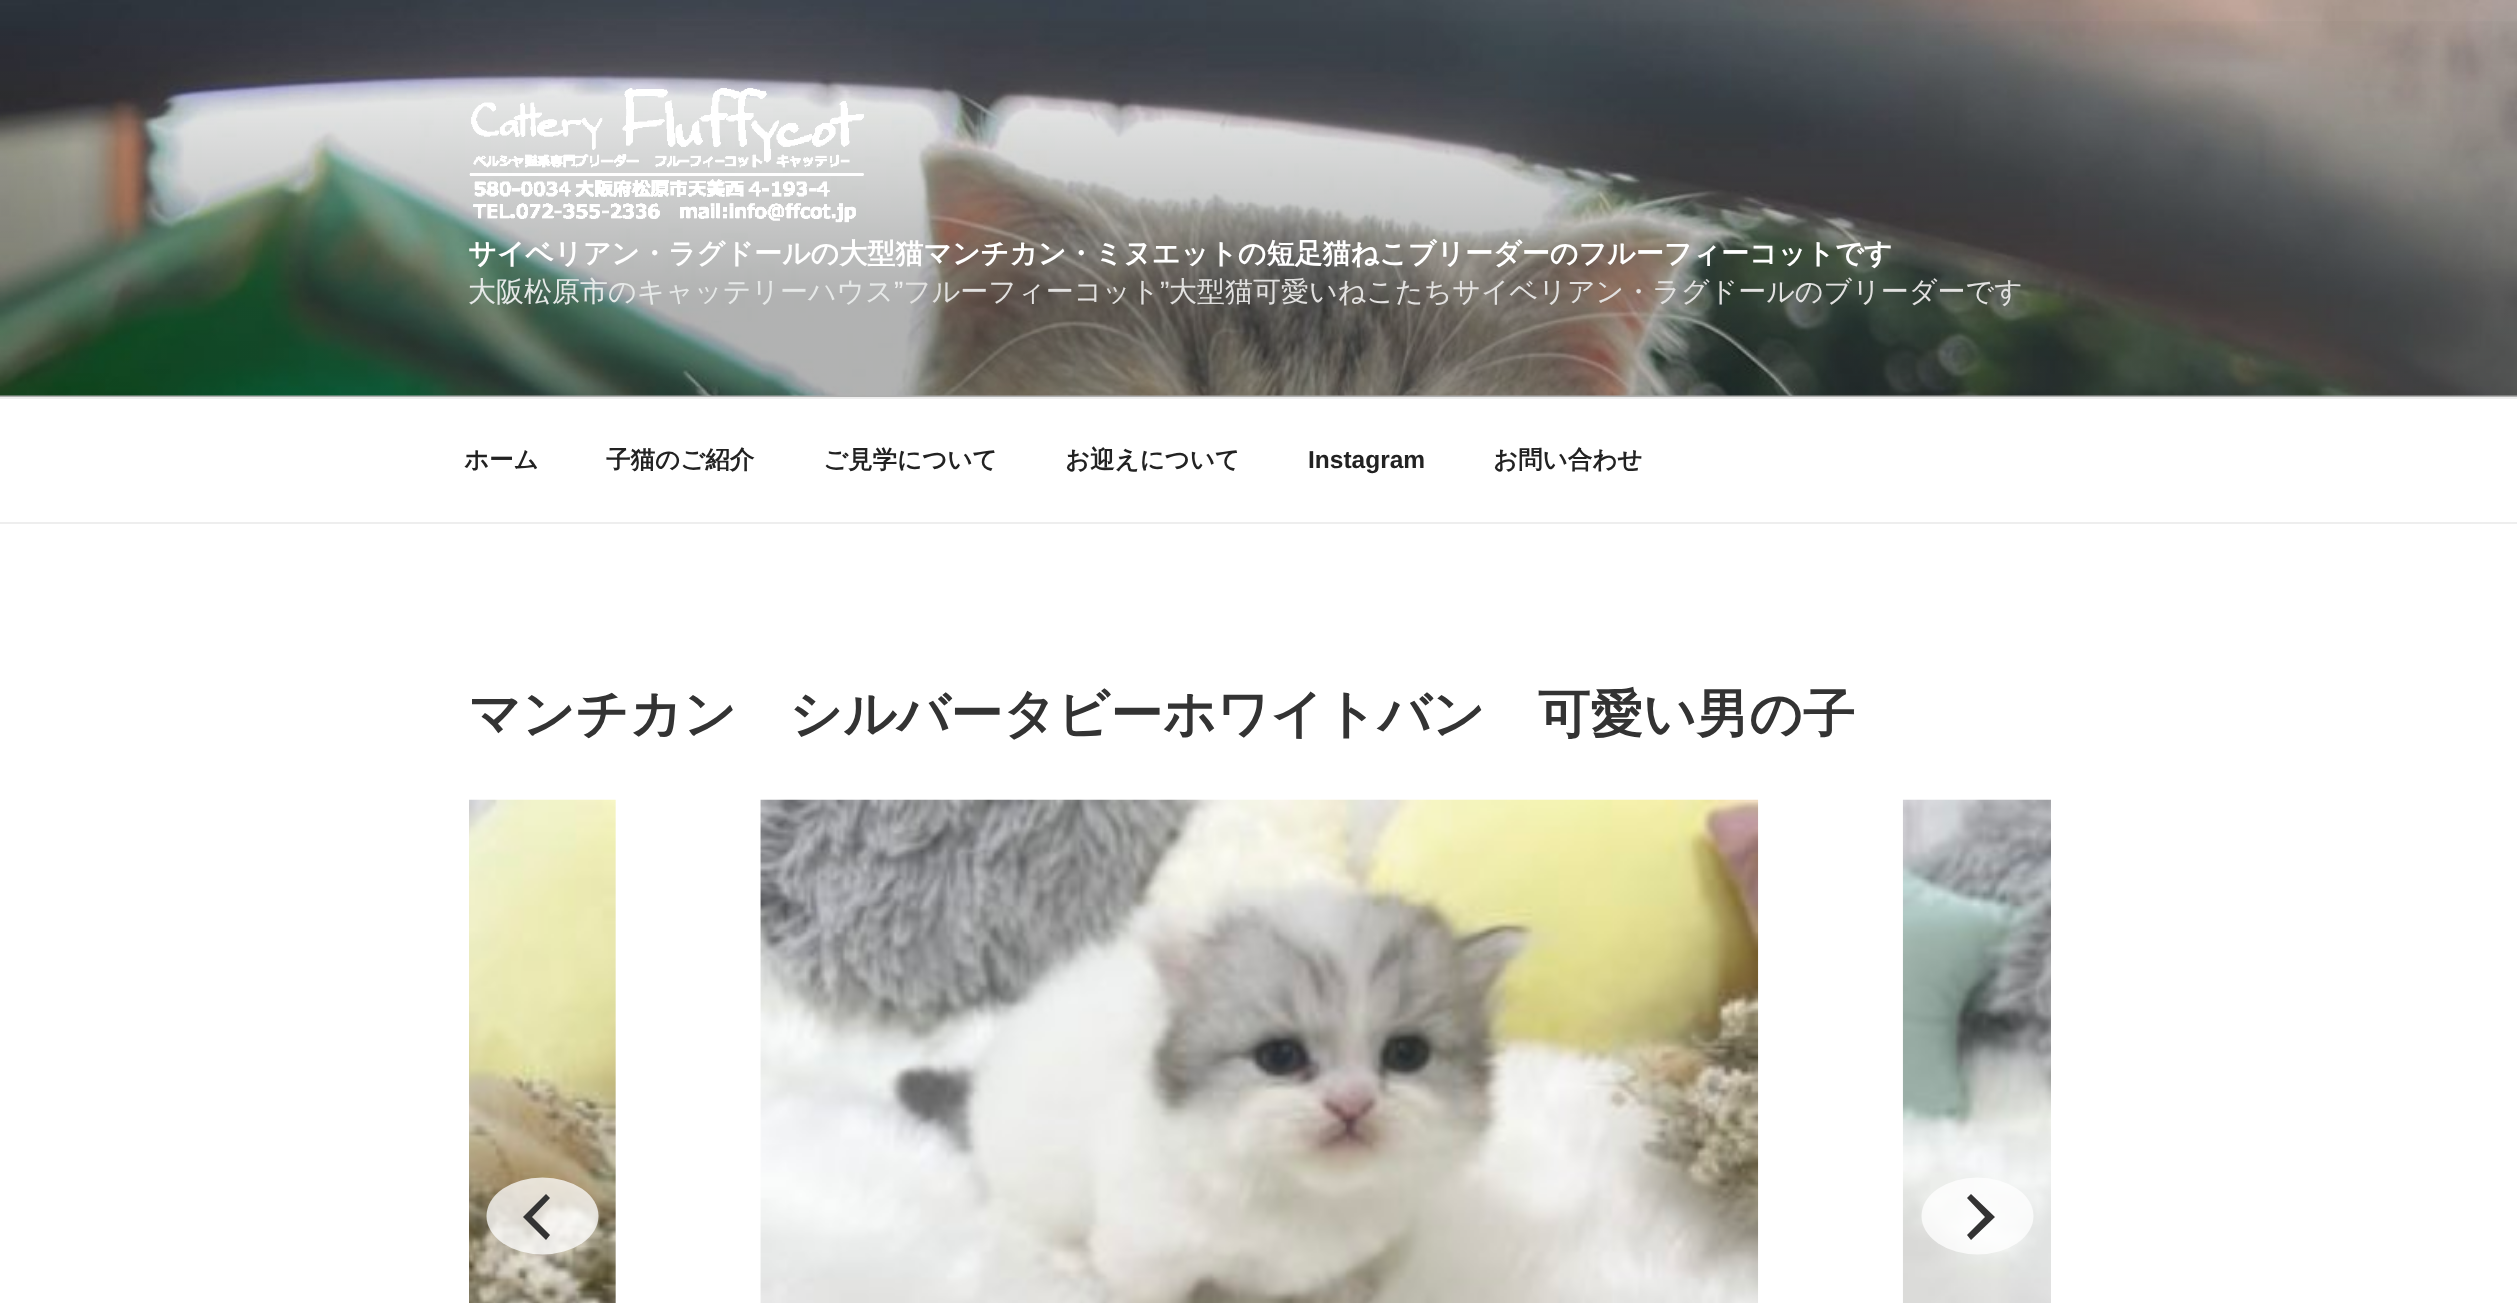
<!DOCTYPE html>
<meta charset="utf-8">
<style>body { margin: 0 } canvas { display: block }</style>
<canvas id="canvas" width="2517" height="1303"></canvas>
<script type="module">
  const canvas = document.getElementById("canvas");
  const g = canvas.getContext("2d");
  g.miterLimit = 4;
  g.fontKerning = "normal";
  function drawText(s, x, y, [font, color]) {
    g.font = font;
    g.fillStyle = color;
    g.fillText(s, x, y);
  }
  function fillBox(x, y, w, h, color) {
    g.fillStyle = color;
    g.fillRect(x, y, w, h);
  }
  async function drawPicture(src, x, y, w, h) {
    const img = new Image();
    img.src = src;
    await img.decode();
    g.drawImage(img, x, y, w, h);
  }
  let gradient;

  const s1 = ["bold 28px WenQuanYi Zen Hei", "#FFFFFF"];
  const s2 = ["500 28px WenQuanYi Zen Hei", "#E6E9E8"];
  const s3 = ["28px Liberation Sans", "#F0F0F0"];
  const s4 = ["500 28px WenQuanYi Zen Hei", "#E2E1E0"];
  const s5 = ["28px Liberation Sans", "#E2E1E0"];
  const s6 = ["bold 24.5px WenQuanYi Zen Hei", "#222222"];
  const s7 = ["bold 24.5px Liberation Sans", "#222222"];
  const s8 = ["bold 52.5px WenQuanYi Zen Hei", "#333333"];

  fillBox(0, 0, 2517, 1303, "#FFFFFF");
  fillBox(0, 395, 2517, 2, "#FAFAFA");
  await drawPicture("pic1.png", 0, 0, 2517, 396);
  gradient = g.createLinearGradient(1259, 0, 1259, 397);
  gradient.addColorStop(0, "rgba(0, 0, 0, 0)");
  gradient.addColorStop(0.75, "rgba(0, 0, 0, 0.3)");
  gradient.addColorStop(1, "rgba(0, 0, 0, 0.3)");
  g.fillStyle = gradient;
  g.fillRect(0, 21, 2517, 376);
  await drawPicture("pic2.png", 469, 88, 395, 135);
  drawText("サイベリアン・ラグドールの大型猫マンチカン・ミヌエットの短足猫ねこブリーダーのフルーフィーコットです", 468, 263, s1);
  drawText("大阪松原市のキャッテリーハウス", 468, 301, s2);
  drawText("”", 894, 301, s3);
  drawText("フルーフィーコット", 903, 301, s4);
  drawText("”", 1160, 301, s5);
  drawText("大型猫可愛いねこたちサイベリアン・ラグドールのブリーダーです", 1169, 301, s4);
  fillBox(0, 397, 2517, 2, "#EEEEEE");
  fillBox(0, 522, 2517, 2, "#EEEEEE");
  drawText("ホーム", 464, 468, s6);
  drawText("子猫のご紹介", 606, 468, s6);
  drawText("ご見学について", 823, 468, s6);
  drawText("お迎えについて", 1065, 468, s6);
  drawText("Instagram", 1308, 468, s7);
  drawText("お問い合わせ", 1493, 468, s6);
  drawText("マンチカン　シルバータビーホワイトバン　可愛い男の子", 468, 732, s8);
  await drawPicture("pic3.png", 469, 799, 147, 504);
  await drawPicture("pic4.png", 760, 799, 999, 504);
  await drawPicture("pic5.png", 1902, 799, 149, 504);
  g.fillStyle = "rgba(255, 255, 255, 0.75)";
  g.beginPath();
  g.ellipse(542.5, 1216, 56, 38.5, 0, 0, Math.PI * 2);
  g.fill();
  g.fillStyle = "#333333";
  g.beginPath();
  g.moveTo(523, 1217);
  g.lineTo(546, 1240);
  g.lineTo(550, 1235);
  g.lineTo(532, 1217);
  g.lineTo(550, 1198);
  g.lineTo(546, 1194);
  g.closePath();
  g.fill();
  g.fillStyle = "rgba(255, 255, 255, 0.75)";
  g.beginPath();
  g.ellipse(1977.5, 1216, 56, 38.5, 0, 0, Math.PI * 2);
  g.fill();
  g.fillStyle = "#333333";
  g.beginPath();
  g.moveTo(1995, 1217);
  g.lineTo(1971, 1194);
  g.lineTo(1967, 1198);
  g.lineTo(1985, 1217);
  g.lineTo(1967, 1235);
  g.lineTo(1971, 1240);
  g.closePath();
  g.fill();
</script>
